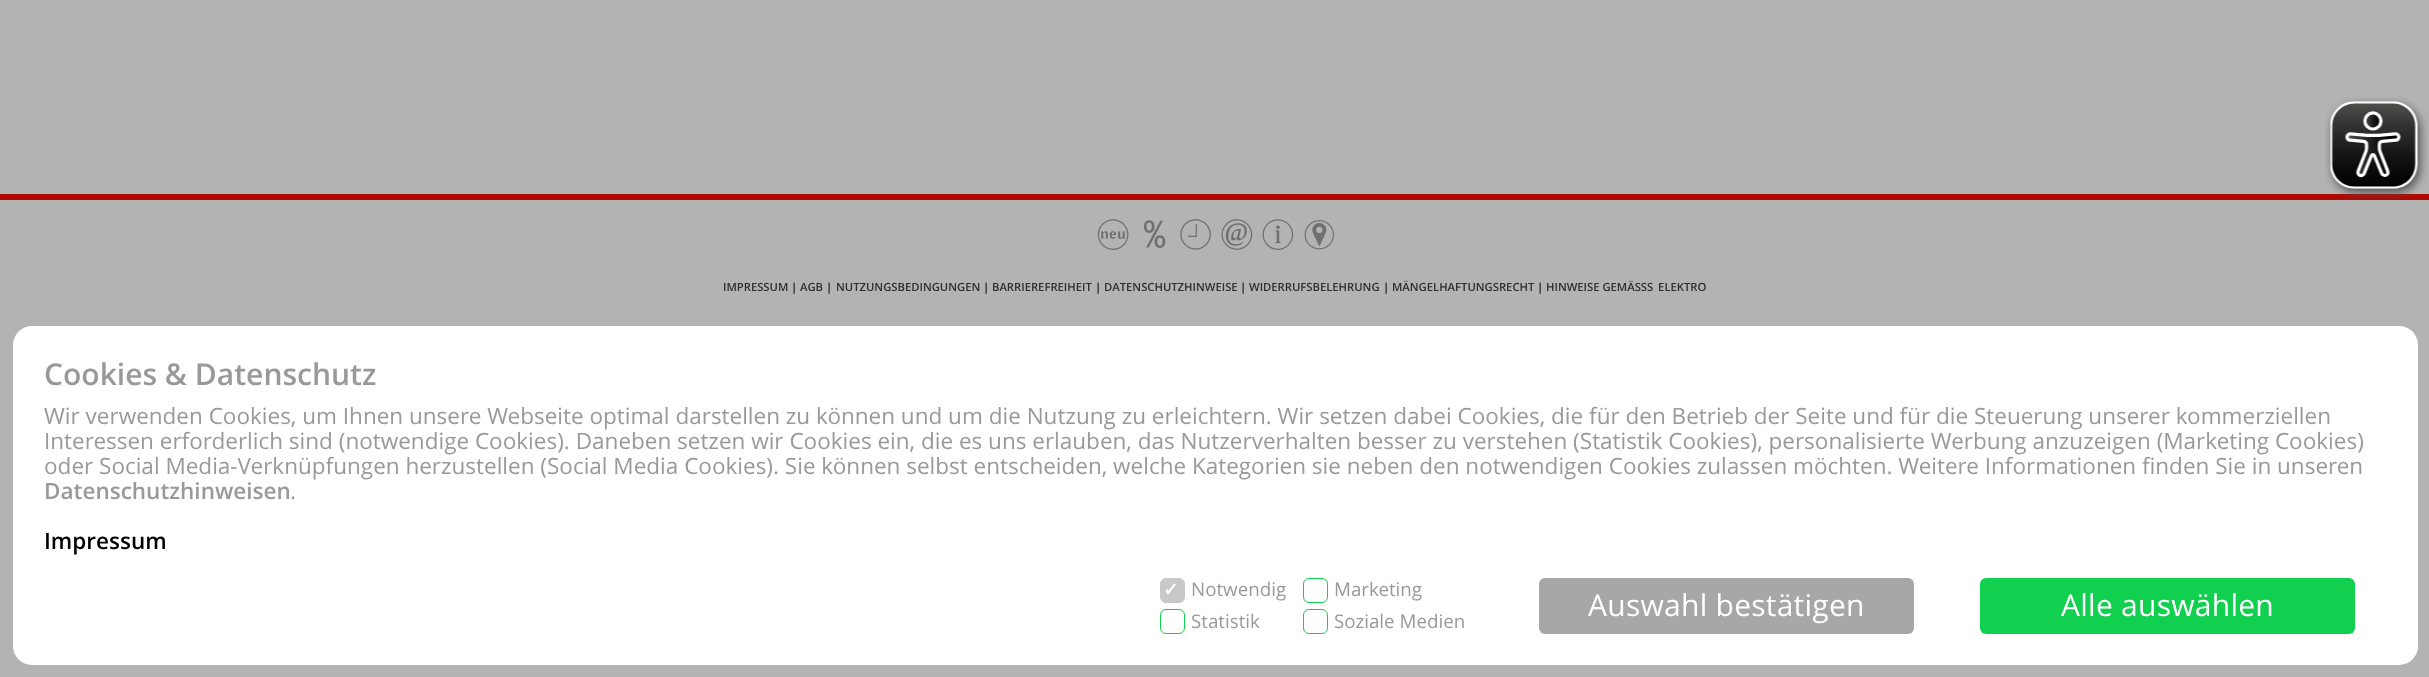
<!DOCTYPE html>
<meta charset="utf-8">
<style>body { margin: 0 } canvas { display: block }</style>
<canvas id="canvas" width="2429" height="677"></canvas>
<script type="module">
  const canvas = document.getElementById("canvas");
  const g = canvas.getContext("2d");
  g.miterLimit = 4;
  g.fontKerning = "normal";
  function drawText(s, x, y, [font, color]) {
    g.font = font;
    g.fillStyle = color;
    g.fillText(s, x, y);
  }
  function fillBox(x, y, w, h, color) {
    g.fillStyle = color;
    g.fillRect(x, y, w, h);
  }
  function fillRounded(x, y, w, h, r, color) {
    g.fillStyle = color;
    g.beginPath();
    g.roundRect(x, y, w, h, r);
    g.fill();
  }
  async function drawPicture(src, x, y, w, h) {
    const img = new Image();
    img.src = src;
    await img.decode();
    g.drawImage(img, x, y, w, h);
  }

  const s1 = ["600 11.25px Open Sans", "#2E2E2E"];
  const s2 = ["600 11.25px Open Sans", "#000000"];
  const s3 = ["600 30px Open Sans", "#999999"];
  const s4 = ["22.5px Open Sans", "#999999"];
  const s5 = ["600 22.5px Open Sans", "#999999"];
  const s6 = ["600 22.5px Open Sans", "#000000"];
  const s7 = ["bold 18.75px DejaVu Sans", "#FFFFFF"];
  const s8 = ["18.75px Open Sans", "#999999"];
  const s9 = ["30px Open Sans", "#FFFFFF"];

  fillBox(0, 0, 2429, 677, "#B3B3B3");
  fillBox(0, 194, 2429, 6, "#B10900");
  await drawPicture("pic1.png", 2325, 97, 103, 103);
  await drawPicture("pic2.png", 1097, 219, 32, 31);
  await drawPicture("pic3.png", 1143, 220, 23, 28);
  await drawPicture("pic4.png", 1180, 219, 31, 31);
  await drawPicture("pic5.png", 1221, 219, 32, 31);
  await drawPicture("pic6.png", 1262, 219, 32, 31);
  await drawPicture("pic7.png", 1304, 220, 30, 30);
  drawText("IMPRESSUM", 723, 291, s1);
  drawText("|", 791, 291, s2);
  drawText("AGB", 800, 291, s1);
  drawText("|", 826, 291, s2);
  drawText("NUTZUNGSBEDINGUNGEN", 836, 291, s1);
  drawText("|", 983, 291, s2);
  drawText("BARRIEREFREIHEIT", 992, 291, s1);
  drawText("|", 1095, 291, s2);
  drawText("DATENSCHUTZHINWEISE", 1104, 291, s1);
  drawText("|", 1240, 291, s2);
  drawText("WIDERRUFSBELEHRUNG", 1249, 291, s1);
  drawText("|", 1383, 291, s2);
  drawText("MÄNGELHAFTUNGSRECHT", 1392, 291, s1);
  drawText("|", 1537, 291, s2);
  drawText("HINWEISE GEMÄSS", 1546, 291, s1);
  g.wordSpacing = "2px";
  drawText("S ELEKTRO", 1647, 291, s1);
  fillRounded(13, 326, 2405, 339, 19, "#FFFFFF");
  g.wordSpacing = "0px";
  drawText("Cookies & Datenschutz", 44, 385, s3);
  drawText("Wir verwenden Cookies, um Ihnen unsere Webseite optimal darstellen zu können und um die Nutzung zu erleichtern. Wir setzen dabei Cookies, die für den Betrieb der Seite und für die Steuerung unserer kommerziellen", 44, 424, s4);
  drawText("Interessen erforderlich sind (notwendige Cookies). Daneben setzen wir Cookies ein, die es uns erlauben, das Nutzerverhalten besser zu verstehen (Statistik Cookies), personalisierte Werbung anzuzeigen (Marketing Cookies)", 44, 449, s4);
  drawText("oder Social Media-Verknüpfungen herzustellen (Social Media Cookies). Sie können selbst entscheiden, welche Kategorien sie neben den notwendigen Cookies zulassen möchten. Weitere Informationen finden Sie in unseren", 44, 474, s4);
  drawText("Datenschutzhinweisen", 44, 499, s5);
  drawText(".", 290, 499, s4);
  drawText("Impressum", 44, 549, s6);
  g.fillStyle = "#C8C8C8";
  g.beginPath();
  g.roundRect(1160.5, 578.5, 24, 24, 5.5);
  g.fill();
  g.strokeStyle = "#C8C8C8";
  g.stroke();
  drawText("✓", 1163, 596, s7);
  drawText("Notwendig", 1191, 596, s8);
  g.beginPath();
  g.roundRect(1303.5, 578.5, 24, 24, 5.5);
  g.strokeStyle = "#11CF4F";
  g.stroke();
  drawText("Marketing", 1334, 596, s8);
  g.beginPath();
  g.roundRect(1160.5, 609.5, 24, 24, 5.5);
  g.stroke();
  drawText("Statistik", 1191, 628, s8);
  g.beginPath();
  g.roundRect(1303.5, 609.5, 24, 24, 5.5);
  g.stroke();
  drawText("Soziale Medien", 1334, 628, s8);
  fillRounded(1539, 578, 375, 56, 6, "#A7A7A7");
  g.letterSpacing = "0.25px";
  drawText("Auswahl bestätigen", 1588, 616, s9);
  fillRounded(1980, 578, 375, 56, 6, "#11CF4F");
  drawText("Alle auswählen", 2061, 616, s9);
</script>
